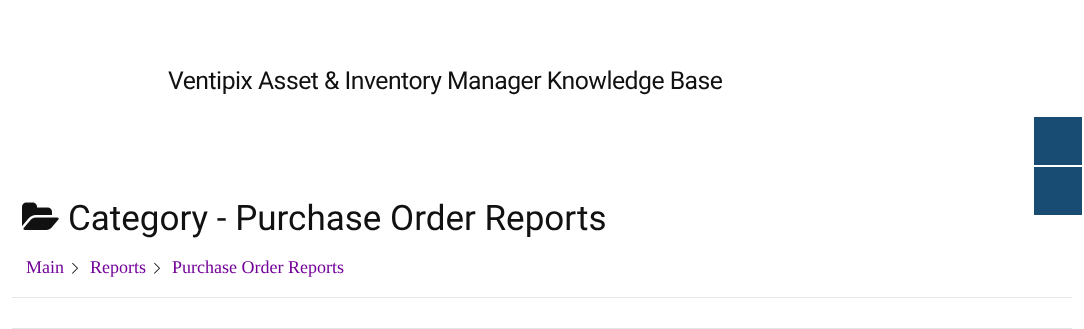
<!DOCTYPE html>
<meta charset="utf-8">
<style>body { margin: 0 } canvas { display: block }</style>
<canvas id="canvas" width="1084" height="329"></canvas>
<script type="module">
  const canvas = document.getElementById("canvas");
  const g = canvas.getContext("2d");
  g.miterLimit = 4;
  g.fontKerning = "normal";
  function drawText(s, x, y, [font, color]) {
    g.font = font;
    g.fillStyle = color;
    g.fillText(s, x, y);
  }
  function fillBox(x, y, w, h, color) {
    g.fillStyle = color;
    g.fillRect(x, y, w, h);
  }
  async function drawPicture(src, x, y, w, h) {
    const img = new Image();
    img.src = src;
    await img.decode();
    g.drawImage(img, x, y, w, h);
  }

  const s1 = ["24.75px Roboto", "#111111"];
  const s2 = ["35px Roboto", "#111111"];
  const s3 = ["18px Liberation Serif", "#730099"];

  fillBox(0, 0, 1084, 329, "#FFFFFF");
  g.letterSpacing = "-0.5px";
  drawText("Ventipix Asset & Inventory Manager Knowledge Base", 168, 89, s1);
  fillBox(12, 297, 1060, 1, "#E6E6E6");
  await drawPicture("pic1.png", 22, 202, 37, 28);
  g.letterSpacing = "0px";
  drawText("Category - Purchase Order Reports", 68, 230, s2);
  drawText("Main", 26, 273, s3);
  await drawPicture("pic2.png", 72, 262, 6, 12);
  drawText("Reports", 90, 273, s3);
  await drawPicture("pic2.png", 154, 262, 6, 12);
  drawText("Purchase Order Reports", 172, 273, s3);
  g.strokeStyle = "#E6E6E6";
  g.strokeRect(12.5, 328.5, 1059, 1);
  fillBox(1034, 117, 48, 48, "#184C72");
  fillBox(1034, 167, 48, 48, "#184C72");
</script>
